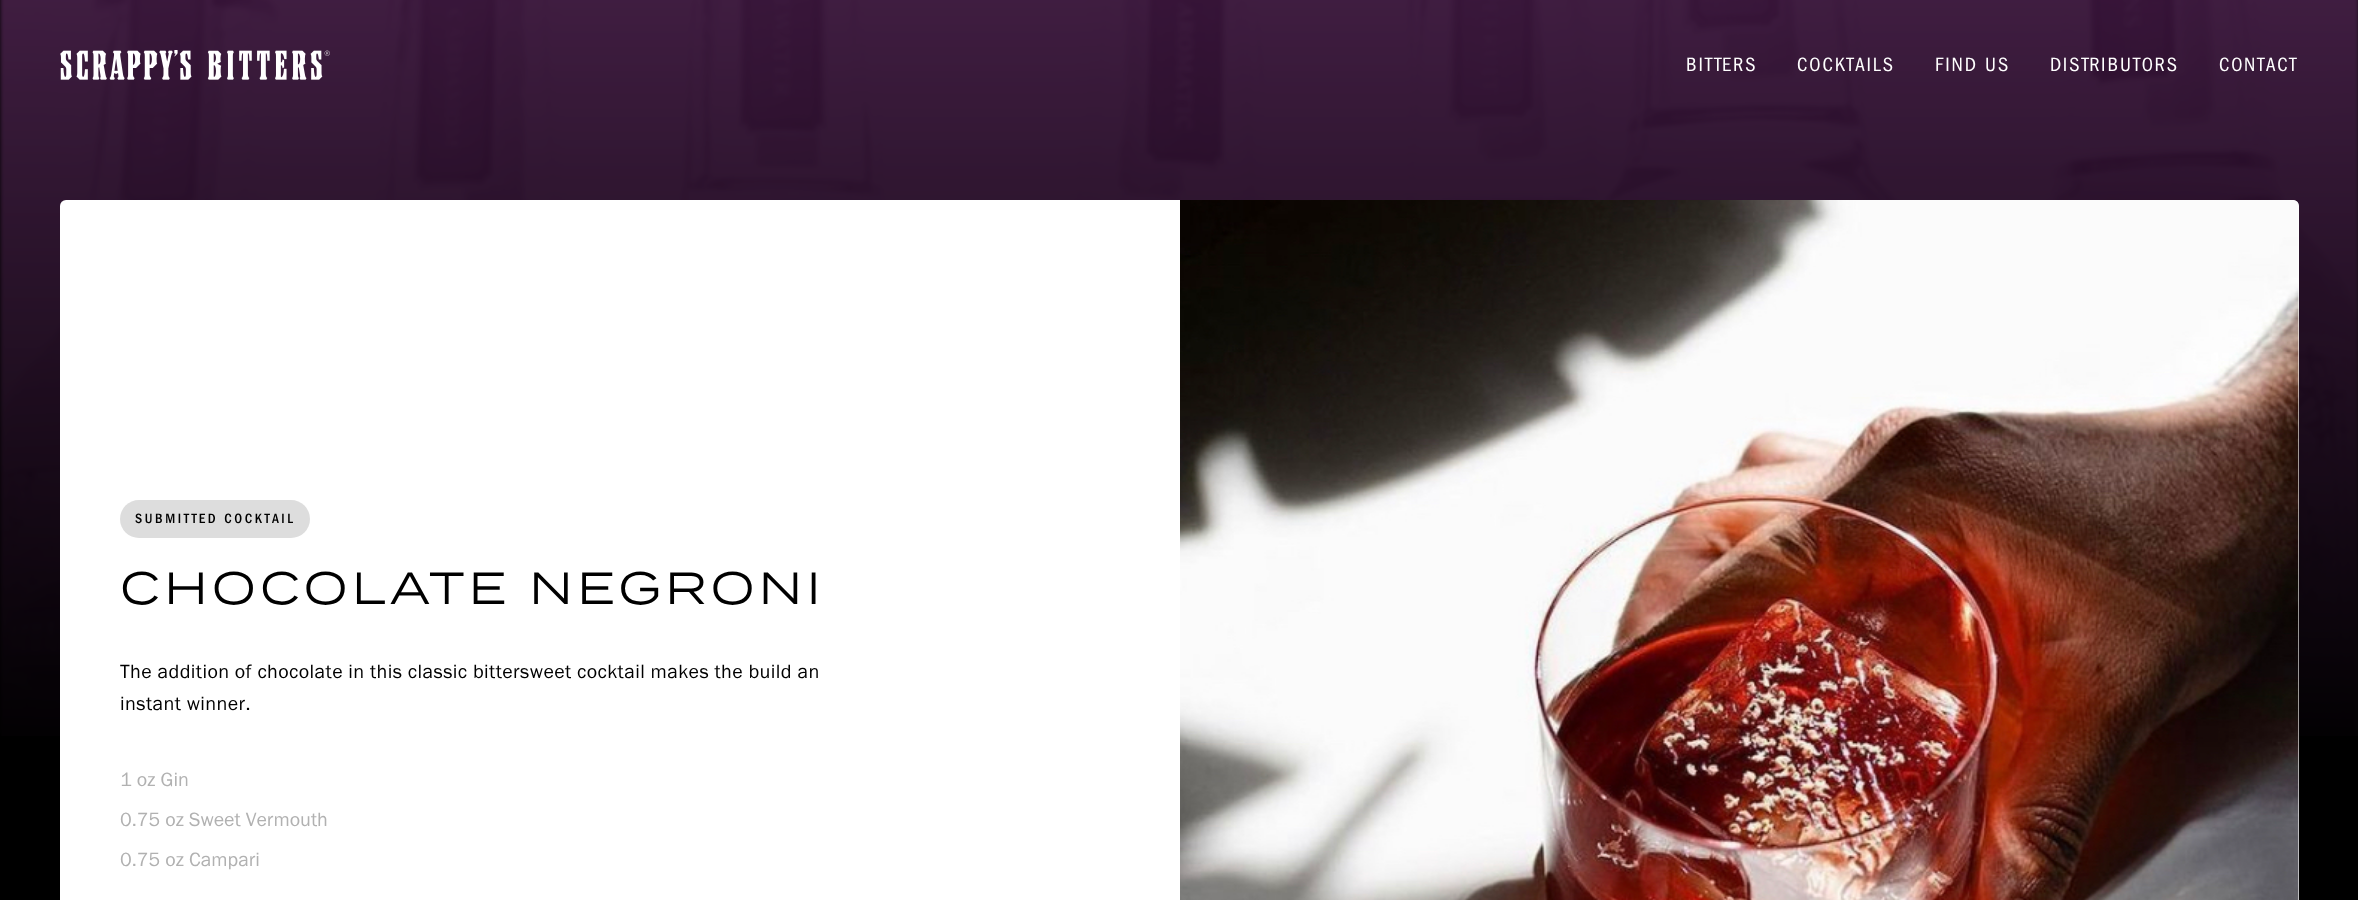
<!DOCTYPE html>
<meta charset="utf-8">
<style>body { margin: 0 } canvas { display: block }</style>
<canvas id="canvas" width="2358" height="900"></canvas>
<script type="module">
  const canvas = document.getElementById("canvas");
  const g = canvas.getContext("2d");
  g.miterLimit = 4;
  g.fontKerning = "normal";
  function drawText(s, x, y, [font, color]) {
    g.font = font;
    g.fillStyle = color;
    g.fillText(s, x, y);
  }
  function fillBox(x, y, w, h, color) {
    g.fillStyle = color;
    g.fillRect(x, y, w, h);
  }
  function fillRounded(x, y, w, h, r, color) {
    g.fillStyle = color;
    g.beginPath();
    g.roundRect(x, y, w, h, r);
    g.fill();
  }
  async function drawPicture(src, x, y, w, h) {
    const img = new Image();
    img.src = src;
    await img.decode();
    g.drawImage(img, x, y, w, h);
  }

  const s1 = ["20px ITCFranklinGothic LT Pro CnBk", "#FFFFFF"];
  const s2 = ["500 14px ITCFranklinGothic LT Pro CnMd", "#000000"];
  const s3 = ["45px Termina", "#000000"];
  const s4 = ["20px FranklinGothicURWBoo", "#000000"];
  const s5 = ["20px FranklinGothicURWBoo", "#B1B1B1"];

  fillBox(0, 0, 2358, 900, "#000000");
  await drawPicture("pic2.png", 0, 0, 2358, 736);
  await drawPicture("pic1.png", 60, 50, 270, 30);
  g.letterSpacing = "2px";
  drawText("BITTERS", 1686, 71, s1);
  drawText("COCKTAILS", 1797, 71, s1);
  drawText("FIND US", 1935, 71, s1);
  drawText("DISTRIBUTORS", 2050, 71, s1);
  drawText("CONTACT", 2219, 71, s1);
  fillRounded(60, 200, 2239, 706, 6, "#FFFFFF");
  fillRounded(120, 500, 190, 38, 19, "#DDDDDD");
  g.letterSpacing = "2.6px";
  drawText("SUBMITTED COCKTAIL", 135, 523, s2);
  g.letterSpacing = "4px";
  drawText("CHOCOLATE NEGRONI", 120, 604, s3);
  g.letterSpacing = "0.4px";
  drawText("The addition of chocolate in this classic bittersweet cocktail makes the build an", 120, 678, s4);
  drawText("instant winner.", 120, 710, s4);
  g.letterSpacing = "0px";
  drawText("1 oz Gin", 120, 786, s5);
  drawText("0.75 oz Sweet Vermouth", 120, 826, s5);
  drawText("0.75 oz Campari", 120, 866, s5);
  await drawPicture("pic3.png", 1180, 200, 1119, 700);
</script>
